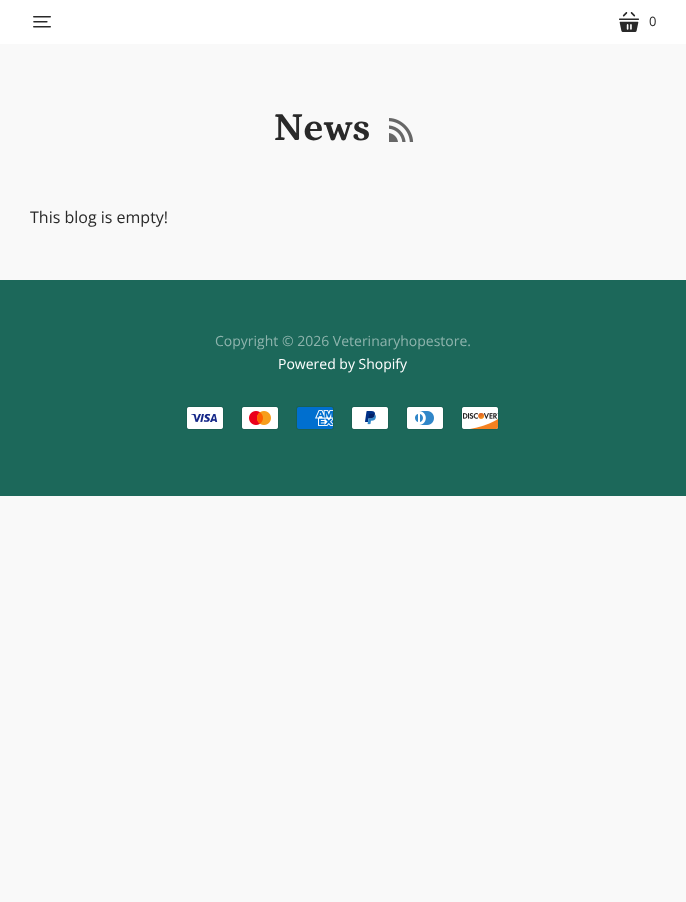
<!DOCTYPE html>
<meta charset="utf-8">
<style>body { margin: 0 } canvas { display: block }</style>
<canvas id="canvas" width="686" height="902"></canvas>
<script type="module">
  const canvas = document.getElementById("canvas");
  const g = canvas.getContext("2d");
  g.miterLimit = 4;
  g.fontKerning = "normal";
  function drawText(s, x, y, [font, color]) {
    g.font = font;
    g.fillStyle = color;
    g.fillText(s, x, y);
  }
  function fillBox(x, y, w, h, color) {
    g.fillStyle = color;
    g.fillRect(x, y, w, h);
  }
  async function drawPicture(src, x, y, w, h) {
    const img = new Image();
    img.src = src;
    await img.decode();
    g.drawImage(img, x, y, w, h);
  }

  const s1 = ["13px Open Sans", "#292929"];
  const s2 = ["bold 40px Petrona", "#292929"];
  const s3 = ["16px Open Sans", "#292929"];
  const s4 = ["14px Open Sans", "#8EB4AD"];
  const s5 = ["14px Open Sans", "#FFFFFF"];

  fillBox(0, 0, 686, 902, "#F9F9F9");
  fillBox(0, 0, 686, 44, "#FFFFFF");
  await drawPicture("pic1.png", 33, 16, 18, 12);
  await drawPicture("pic2.png", 33, 21, 15, 2);
  await drawPicture("pic3.png", 619, 12, 20, 20);
  drawText("0", 649, 26, s1);
  drawText("News", 273, 140, s2);
  await drawPicture("pic4.png", 389, 118, 25, 24);
  drawText("This blog is empty!", 30, 223, s3);
  fillBox(0, 280, 686, 216, "#1C685A");
  drawText("Copyright © 2026 Veterinaryhopestore.", 215, 346, s4);
  drawText("Powered by Shopify", 278, 369, s5);
  await drawPicture("pic5.png", 186, 406, 38, 24);
  await drawPicture("pic6.png", 241, 406, 38, 24);
  await drawPicture("pic7.png", 296, 406, 38, 24);
  await drawPicture("pic8.png", 351, 406, 38, 24);
  await drawPicture("pic9.png", 406, 406, 38, 24);
  await drawPicture("pic10.png", 461, 406, 38, 24);
</script>
